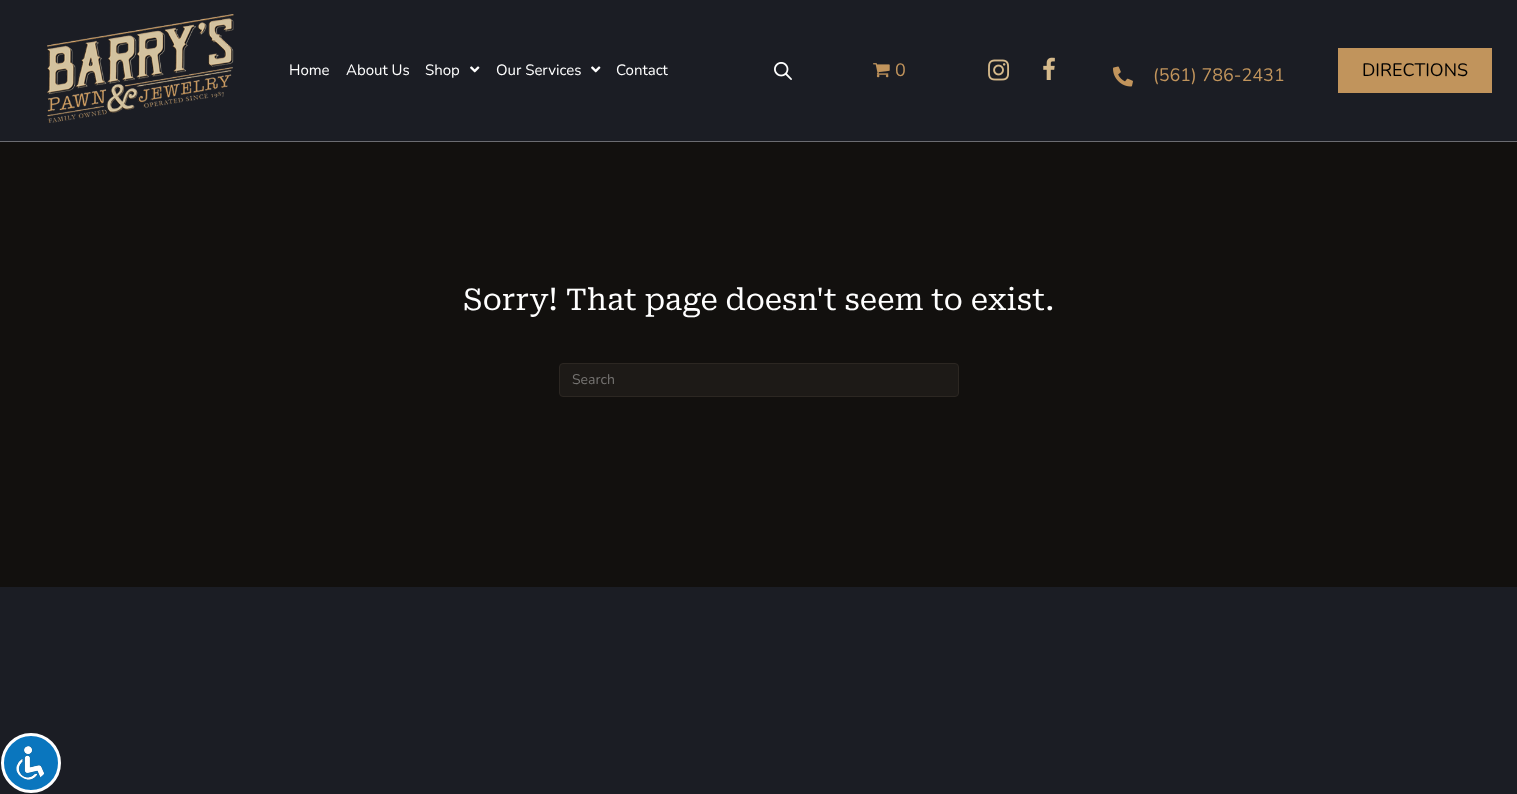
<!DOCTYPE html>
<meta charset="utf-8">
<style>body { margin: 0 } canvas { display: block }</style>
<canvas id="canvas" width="1517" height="794"></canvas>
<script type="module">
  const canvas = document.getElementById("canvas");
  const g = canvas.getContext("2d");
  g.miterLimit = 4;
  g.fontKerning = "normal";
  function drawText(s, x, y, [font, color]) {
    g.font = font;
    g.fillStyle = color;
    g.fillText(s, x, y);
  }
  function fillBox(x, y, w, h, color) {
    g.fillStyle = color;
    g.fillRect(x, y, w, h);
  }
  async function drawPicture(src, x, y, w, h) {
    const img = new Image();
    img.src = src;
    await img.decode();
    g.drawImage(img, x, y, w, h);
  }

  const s1 = ["15px Nunito", "#FFFFFF"];
  const s2 = ["18px Nunito", "#C1945C"];
  const s3 = ["18px Nunito", "#000000"];
  const s4 = ["30px Roboto Serif", "#FFFFFF"];
  const s5 = ["14px Nunito", "#757371"];

  fillBox(0, 0, 1517, 794, "#1B1D24");
  fillBox(0, 141, 1517, 1, "#6B6C71");
  await drawPicture("pic1.png", 47, 14, 187, 109);
  drawText("Home", 289, 75, s1);
  drawText("About Us", 346, 75, s1);
  drawText("Shop", 425, 75, s1);
  await drawPicture("pic2.png", 470, 66, 10, 7);
  drawText("Our Services", 496, 75, s1);
  await drawPicture("pic2.png", 591, 66, 10, 7);
  drawText("Contact", 616, 75, s1);
  await drawPicture("pic3.png", 774, 62, 18, 18);
  await drawPicture("pic4.png", 873, 63, 17, 15);
  drawText("0", 895, 76, s2);
  await drawPicture("pic5.png", 988, 59, 22, 22);
  await drawPicture("pic6.png", 1043, 57, 12, 23);
  await drawPicture("pic7.png", 1113, 66, 20, 21);
  drawText("(561) 786-2431", 1153, 81, s2);
  fillBox(1338, 48, 154, 45, "#C1945C");
  drawText("DIRECTIONS", 1362, 76, s3);
  fillBox(0, 142, 1517, 445, "#12100E");
  drawText("Sorry! That page doesn't seem to exist.", 463, 310, s4);
  g.fillStyle = "#1D1A17";
  g.beginPath();
  g.roundRect(559.5, 363.5, 399, 33, 3.5);
  g.fill();
  g.strokeStyle = "#2C2722";
  g.stroke();
  drawText("Search", 572, 384, s5);
  g.fillStyle = "#0A76BE";
  g.beginPath();
  g.arc(31, 763, 28.5, 0, Math.PI * 2);
  g.fill();
  g.strokeStyle = "#FFFFFF";
  g.lineWidth = 3;
  g.stroke();
  await drawPicture("pic8.png", 16, 746, 29, 34);
</script>
